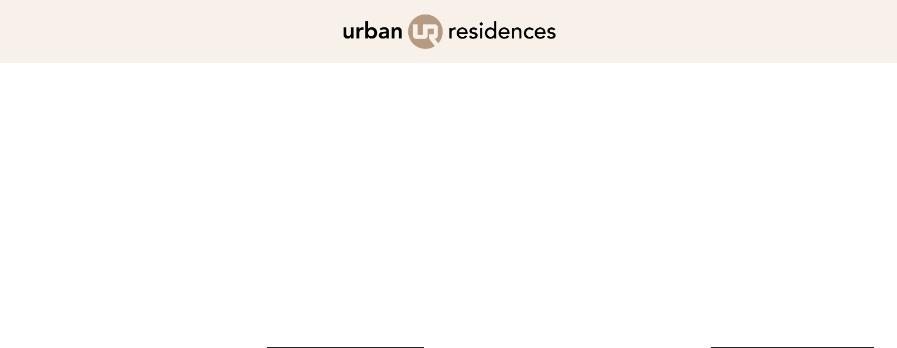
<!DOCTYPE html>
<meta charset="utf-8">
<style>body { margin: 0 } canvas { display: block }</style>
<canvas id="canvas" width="897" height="348"></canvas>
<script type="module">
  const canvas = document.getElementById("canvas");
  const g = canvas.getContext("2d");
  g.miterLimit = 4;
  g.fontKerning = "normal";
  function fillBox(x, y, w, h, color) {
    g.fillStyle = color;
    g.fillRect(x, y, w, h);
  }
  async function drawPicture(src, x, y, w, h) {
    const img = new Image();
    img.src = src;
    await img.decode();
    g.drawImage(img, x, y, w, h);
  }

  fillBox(0, 0, 897, 348, "#FFFFFF");
  fillBox(0, 0, 897, 63, "#F8F1EA");
  await drawPicture("pic1.png", 343, 14, 213, 35);
  g.strokeStyle = "#212121";
  g.strokeRect(267.5, 347.5, 156, 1);
  g.strokeRect(711.5, 347.5, 162, 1);
</script>
